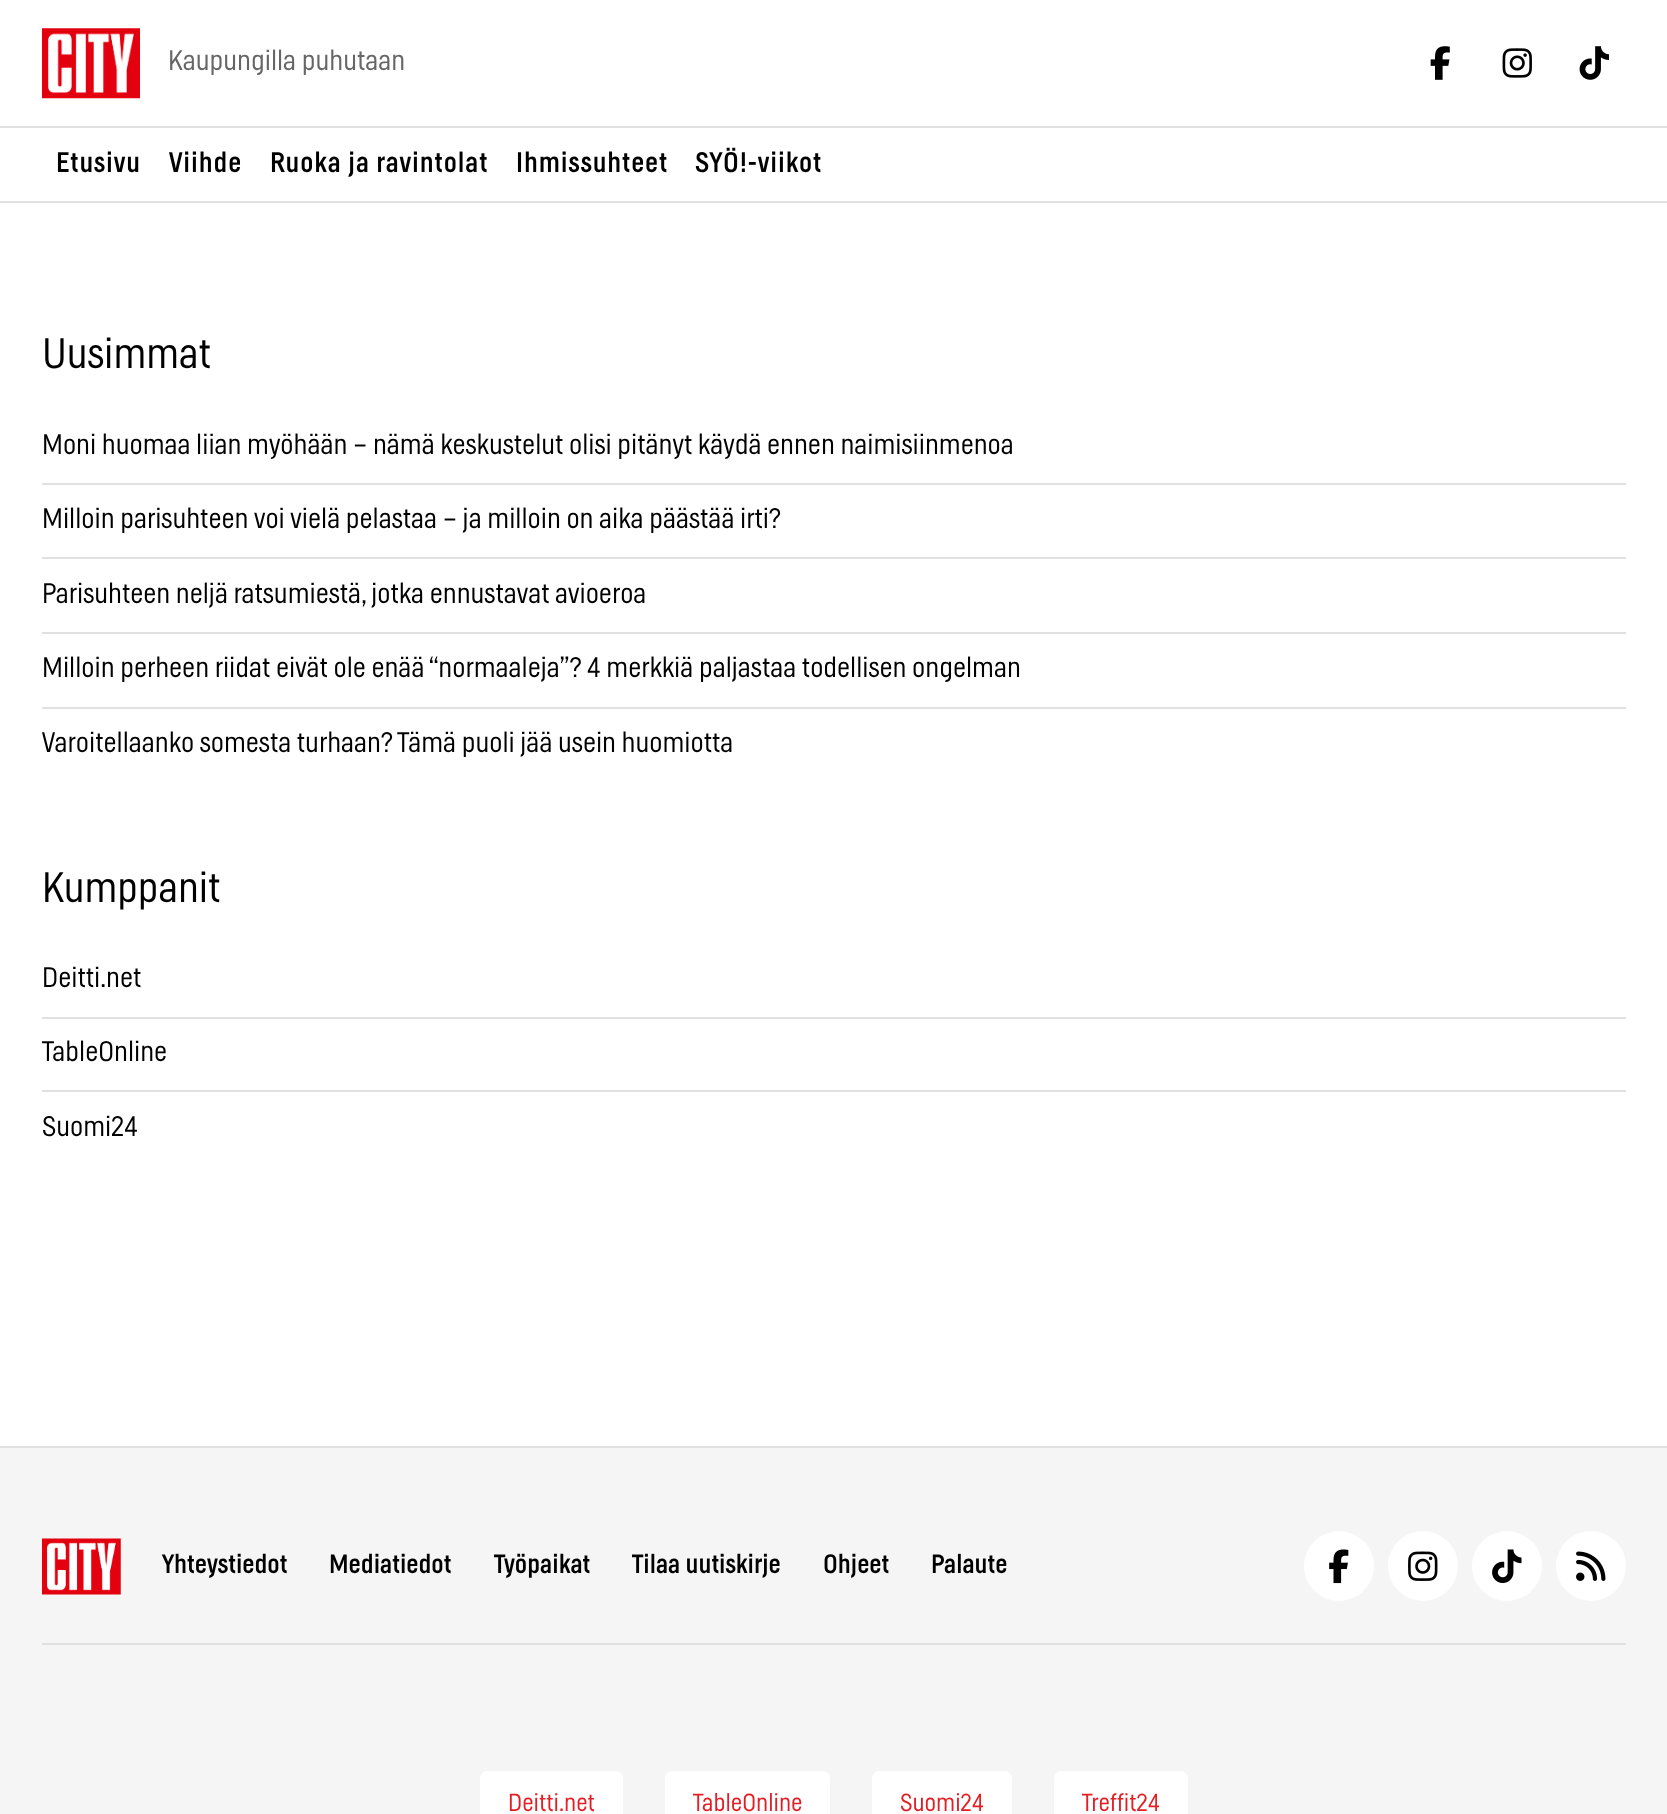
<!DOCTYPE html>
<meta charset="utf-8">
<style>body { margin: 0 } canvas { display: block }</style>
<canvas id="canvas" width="1667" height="1814"></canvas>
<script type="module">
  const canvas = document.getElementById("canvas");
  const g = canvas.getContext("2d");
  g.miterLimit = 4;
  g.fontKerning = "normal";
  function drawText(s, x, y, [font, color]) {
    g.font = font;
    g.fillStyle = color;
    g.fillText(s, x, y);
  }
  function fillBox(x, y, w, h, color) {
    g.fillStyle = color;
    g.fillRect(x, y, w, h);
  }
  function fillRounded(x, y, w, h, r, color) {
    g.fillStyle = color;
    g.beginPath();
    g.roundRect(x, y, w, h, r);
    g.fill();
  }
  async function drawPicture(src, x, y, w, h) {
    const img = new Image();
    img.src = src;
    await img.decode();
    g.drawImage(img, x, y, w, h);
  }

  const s1 = ["200 28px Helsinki", "#666666"];
  const s2 = ["28px Helsinki", "#000000"];
  const s3 = ["200 42px Helsinki", "#000000"];
  const s4 = ["200 28px Helsinki", "#000000"];
  const s5 = ["26.25px Helsinki", "#000000"];
  const s6 = ["200 24.5px Helsinki", "#E31E24"];

  fillBox(0, 0, 1667, 1814, "#FFFFFF");
  fillBox(0, 201, 1667, 2, "#E0E0E0");
  fillBox(0, 126, 1667, 2, "#E0E0E0");
  await drawPicture("pic1.png", 42, 28, 98, 71);
  drawText("Kaupungilla puhutaan", 168, 70, s1);
  await drawPicture("pic2.png", 1430, 46, 20, 34);
  await drawPicture("pic3.png", 1502, 48, 30, 30);
  await drawPicture("pic4.png", 1579, 46, 30, 34);
  g.letterSpacing = "0.9px";
  drawText("Etusivu", 56, 172, s2);
  drawText("Viihde", 169, 172, s2);
  drawText("Ruoka ja ravintolat", 270, 172, s2);
  drawText("Ihmissuhteet", 516, 172, s2);
  drawText("SYÖ!-viikot", 695, 172, s2);
  g.letterSpacing = "0px";
  drawText("Uusimmat", 42, 368, s3);
  fillBox(42, 483, 1584, 2, "#E0E0E0");
  drawText("Moni huomaa liian myöhään – nämä keskustelut olisi pitänyt käydä ennen naimisiinmenoa", 42, 454, s4);
  fillBox(42, 557, 1584, 2, "#E0E0E0");
  drawText("Milloin parisuhteen voi vielä pelastaa – ja milloin on aika päästää irti?", 42, 528, s4);
  fillBox(42, 632, 1584, 2, "#E0E0E0");
  drawText("Parisuhteen neljä ratsumiestä, jotka ennustavat avioeroa", 42, 603, s4);
  fillBox(42, 707, 1584, 2, "#E0E0E0");
  drawText("Milloin perheen riidat eivät ole enää “normaaleja”? 4 merkkiä paljastaa todellisen ongelman", 42, 677, s4);
  drawText("Varoitellaanko somesta turhaan? Tämä puoli jää usein huomiotta", 42, 752, s4);
  drawText("Kumppanit", 42, 902, s3);
  fillBox(42, 1017, 1584, 2, "#E0E0E0");
  drawText("Deitti.net", 42, 987, s4);
  fillBox(42, 1090, 1584, 2, "#E0E0E0");
  drawText("TableOnline", 42, 1061, s4);
  drawText("Suomi24", 42, 1136, s4);
  fillBox(0, 1448, 1667, 366, "#F5F5F5");
  fillBox(0, 1446, 1667, 2, "#E0E0E0");
  fillBox(42, 1643, 1584, 2, "#E0E0E0");
  await drawPicture("pic5.png", 42, 1538, 79, 57);
  drawText("Yhteystiedot", 162, 1573, s5);
  drawText("Mediatiedot", 329, 1573, s5);
  drawText("Työpaikat", 494, 1573, s5);
  drawText("Tilaa uutiskirje", 632, 1573, s5);
  drawText("Ohjeet", 823, 1573, s5);
  drawText("Palaute", 931, 1573, s5);
  g.fillStyle = "#FFFFFF";
  g.beginPath();
  g.arc(1339, 1566, 35, 0, Math.PI * 2);
  g.fill();
  await drawPicture("pic6.png", 1329, 1549, 20, 35);
  g.beginPath();
  g.arc(1423, 1566, 35, 0, Math.PI * 2);
  g.fill();
  await drawPicture("pic7.png", 1408, 1551, 30, 30);
  g.beginPath();
  g.arc(1507, 1566, 35, 0, Math.PI * 2);
  g.fill();
  await drawPicture("pic8.png", 1492, 1549, 30, 34);
  g.beginPath();
  g.arc(1591, 1566, 35, 0, Math.PI * 2);
  g.fill();
  await drawPicture("pic9.png", 1576, 1551, 30, 30);
  fillRounded(480, 1771, 143, 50, 7, "#FFFFFF");
  drawText("Deitti.net", 508, 1811, s6);
  fillRounded(665, 1771, 165, 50, 7, "#FFFFFF");
  drawText("TableOnline", 693, 1811, s6);
  fillRounded(872, 1771, 140, 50, 7, "#FFFFFF");
  drawText("Suomi24", 900, 1811, s6);
  fillRounded(1054, 1771, 134, 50, 7, "#FFFFFF");
  drawText("Treffit24", 1082, 1811, s6);
</script>
